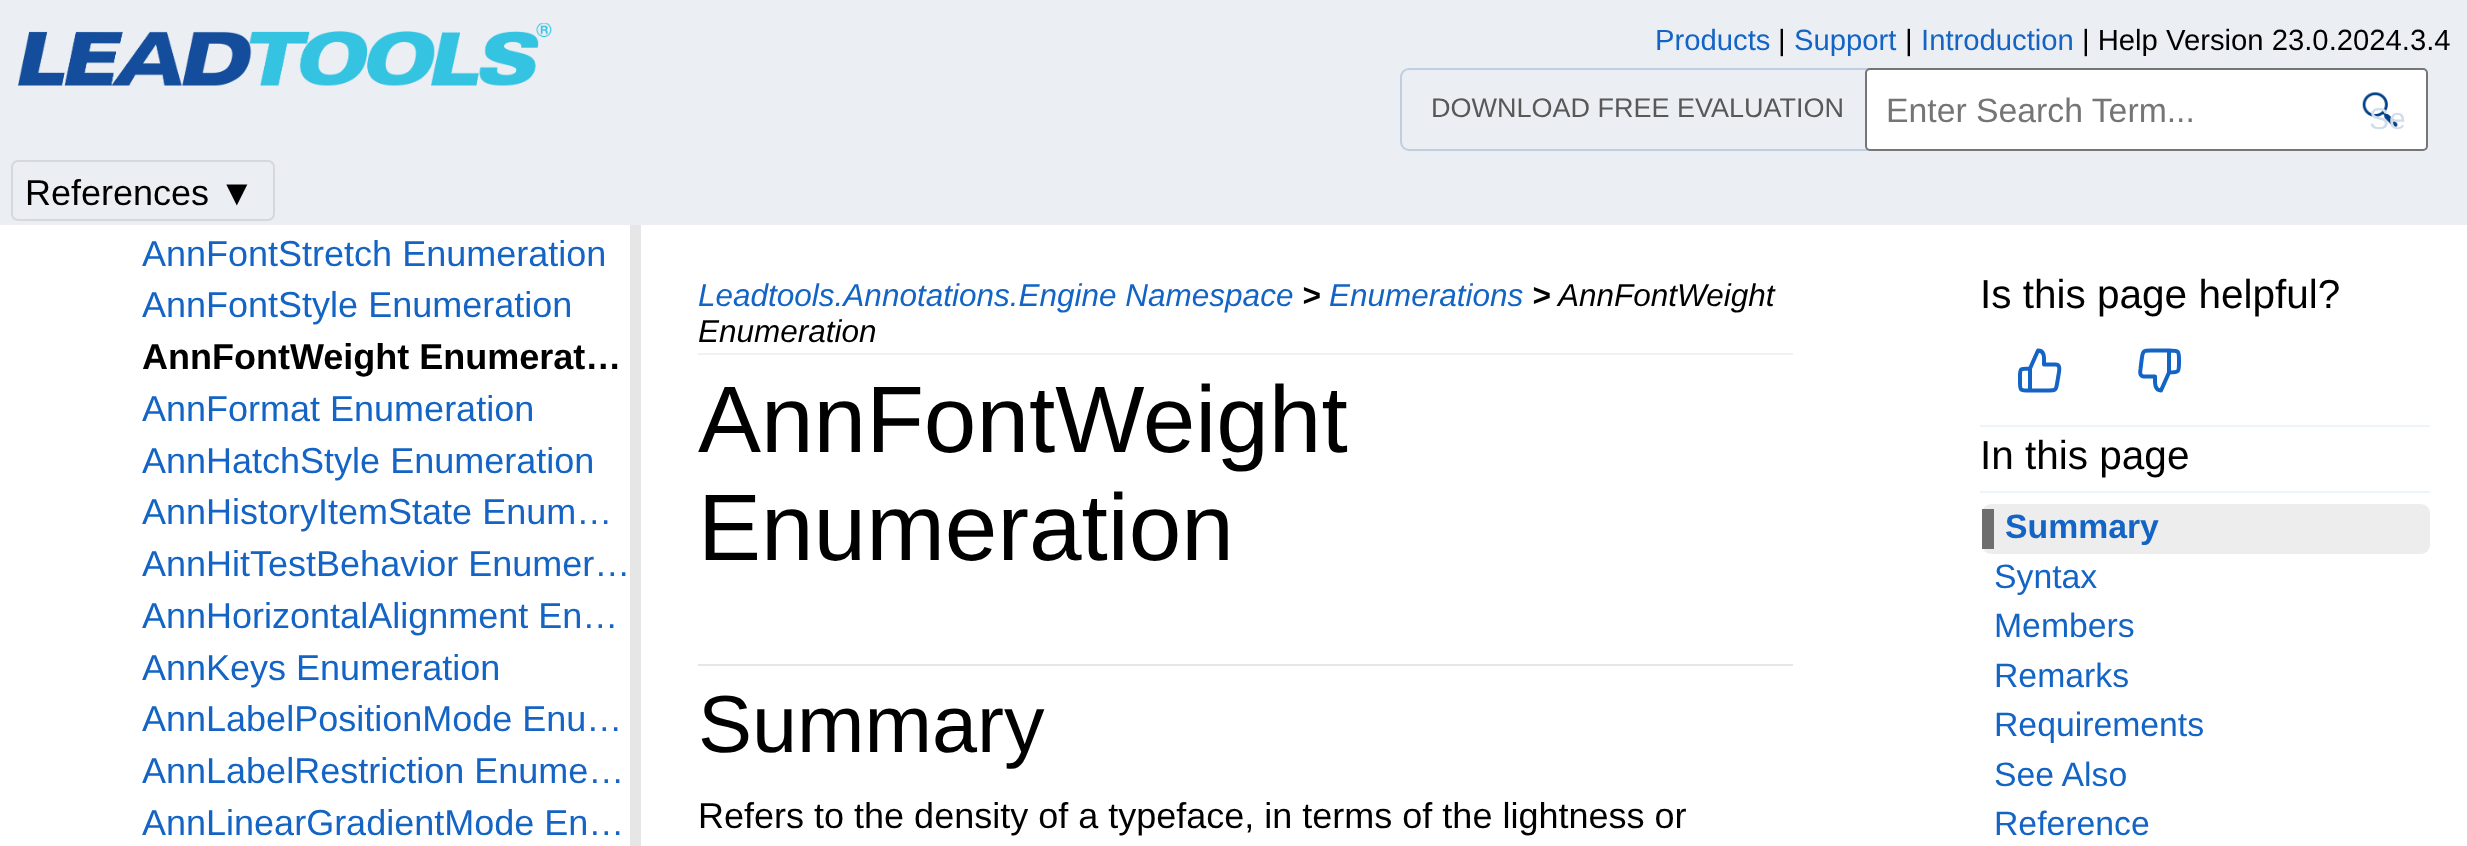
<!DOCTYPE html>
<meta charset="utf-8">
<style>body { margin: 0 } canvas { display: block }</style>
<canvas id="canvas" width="2467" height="846"></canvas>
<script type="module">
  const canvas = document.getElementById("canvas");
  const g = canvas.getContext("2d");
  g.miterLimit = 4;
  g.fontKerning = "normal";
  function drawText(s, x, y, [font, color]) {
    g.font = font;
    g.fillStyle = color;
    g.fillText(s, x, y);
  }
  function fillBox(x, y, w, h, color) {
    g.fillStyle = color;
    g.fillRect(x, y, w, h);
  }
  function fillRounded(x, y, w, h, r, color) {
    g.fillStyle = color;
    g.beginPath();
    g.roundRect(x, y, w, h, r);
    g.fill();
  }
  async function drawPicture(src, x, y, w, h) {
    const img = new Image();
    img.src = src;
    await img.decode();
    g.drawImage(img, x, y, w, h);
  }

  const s1 = ["29.25px Liberation Sans", "#1364C4"];
  const s2 = ["29.25px Liberation Sans", "#000000"];
  const s3 = ["27px Liberation Sans", "#585858"];
  const s4 = ["33.75px Liberation Sans", "#757575"];
  const s5 = ["30px Liberation Sans", "#D2DDEA"];
  const s6 = ["36px Liberation Sans", "#000000"];
  const s7 = ["36px Liberation Sans", "#1364C4"];
  const s8 = ["bold 36px Liberation Sans", "#000000"];
  const s9 = ["italic 31.5px Liberation Sans", "#1364C4"];
  const s10 = ["italic bold 31.5px Liberation Sans", "#000000"];
  const s11 = ["italic 31.5px Liberation Sans", "#000000"];
  const s12 = ["40.5px Liberation Sans", "#000000"];
  const s13 = ["bold 33.75px Liberation Sans", "#1364C4"];
  const s14 = ["33.75px Liberation Sans", "#1364C4"];
  const s15 = ["94.5px Liberation Sans", "#000000"];
  const s16 = ["81px Liberation Sans", "#000000"];

  fillBox(0, 0, 2467, 846, "#FFFFFF");
  fillBox(0, 0, 2467, 225, "#EBEEF3");
  await drawPicture("pic1.png", 18, 23, 534, 63);
  drawText("Products", 1655, 50, s1);
  drawText("|", 1778, 50, s2);
  drawText("Support", 1794, 50, s1);
  drawText("|", 1905, 50, s2);
  drawText("Introduction", 1921, 50, s1);
  drawText("| Help Version 23.0.2024.3.4", 2082, 50, s2);
  g.beginPath();
  g.roundRect(1401, 69, 475, 81, 8);
  g.strokeStyle = "#C0CEE1";
  g.lineWidth = 2;
  g.stroke();
  drawText("DOWNLOAD FREE EVALUATION", 1431, 117, s3);
  g.fillStyle = "#FFFFFF";
  g.beginPath();
  g.roundRect(1866, 69, 561, 81, 4);
  g.fill();
  g.strokeStyle = "#767676";
  g.stroke();
  drawText("Enter Search Term...", 1886, 122, s4);
  await drawPicture("pic2.png", 2362, 92, 36, 36);
  drawText("Se", 2369, 129, s5);
  g.beginPath();
  g.roundRect(12, 161, 262, 59, 6);
  g.strokeStyle = "#D6D8DC";
  g.stroke();
  drawText("References ▼", 25, 205, s6);
  fillBox(630, 225, 11, 621, "#E6E6E6");
  drawText("AnnFontStretch Enumeration", 142, 266, s7);
  drawText("AnnFontStyle Enumeration", 142, 317, s7);
  drawText("AnnFontWeight Enumerat…", 142, 369, s8);
  drawText("AnnFormat Enumeration", 142, 421, s7);
  drawText("AnnHatchStyle Enumeration", 142, 473, s7);
  drawText("AnnHistoryItemState Enum…", 142, 524, s7);
  drawText("AnnHitTestBehavior Enumer…", 142, 576, s7);
  drawText("AnnHorizontalAlignment En…", 142, 628, s7);
  drawText("AnnKeys Enumeration", 142, 680, s7);
  drawText("AnnLabelPositionMode Enu…", 142, 731, s7);
  drawText("AnnLabelRestriction Enume…", 142, 783, s7);
  drawText("AnnLinearGradientMode En…", 142, 835, s7);
  fillBox(698, 353, 1095, 2, "#F1F1F1");
  drawText("Leadtools.Annotations.Engine Namespace", 698, 306, s9);
  drawText(">", 1302, 306, s10);
  drawText("Enumerations", 1329, 306, s9);
  drawText(">", 1532, 306, s10);
  drawText("AnnFontWeight", 1558, 306, s11);
  drawText("Enumeration", 698, 342, s11);
  drawText("Is this page helpful?", 1980, 308, s12);
  g.beginPath();
  g.moveTo(2044, 364.5);
  g.bezierCurveTo(2044, 359.5, 2045.5, 350.5, 2038, 350.5);
  g.lineTo(2030, 368.5);
  g.lineTo(2030, 390.5);
  g.lineTo(2049, 390.5);
  g.bezierCurveTo(2055, 390.5, 2056, 390.5, 2057, 384);
  g.lineTo(2059, 372);
  g.bezierCurveTo(2059.5, 369, 2060, 364.5, 2055.5, 364.5);
  g.closePath();
  g.moveTo(2030, 390.5);
  g.bezierCurveTo(2019, 390.5, 2020, 390.5, 2020, 379.5);
  g.bezierCurveTo(2020, 368.5, 2019, 368.5, 2030, 368.5);
  g.strokeStyle = "#1364C4";
  g.lineWidth = 4;
  g.lineCap = "round";
  g.lineJoin = "round";
  g.stroke();
  g.beginPath();
  g.moveTo(2155, 376.5);
  g.bezierCurveTo(2155, 381.5, 2154, 390.5, 2161, 390.5);
  g.lineTo(2169, 372.5);
  g.lineTo(2169, 350.5);
  g.lineTo(2150.5, 350.5);
  g.bezierCurveTo(2144, 350.5, 2143, 350.5, 2142, 357);
  g.lineTo(2140.5, 369);
  g.bezierCurveTo(2140, 372, 2139.5, 376.5, 2144, 376.5);
  g.closePath();
  g.moveTo(2169, 350.5);
  g.bezierCurveTo(2179.5, 350.5, 2179, 351, 2179, 361.5);
  g.bezierCurveTo(2179, 372, 2179.5, 372.5, 2169, 372.5);
  g.stroke();
  fillBox(1980, 425, 450, 2, "#EDF5FB");
  fillBox(1980, 491, 450, 2, "#EDF5FB");
  drawText("In this page", 1980, 469, s12);
  fillRounded(1982, 504, 448, 50, 9, "#EDEDED");
  fillBox(1982, 509, 12, 40, "rgba(77, 77, 77, 0.8)");
  drawText("Summary", 2005, 538, s13);
  drawText("Syntax", 1994, 588, s14);
  drawText("Members", 1994, 637, s14);
  drawText("Remarks", 1994, 687, s14);
  drawText("Requirements", 1994, 736, s14);
  drawText("See Also", 1994, 786, s14);
  drawText("Reference", 1994, 835, s14);
  drawText("AnnFontWeight", 698, 452, s15);
  drawText("Enumeration", 698, 560, s15);
  fillBox(698, 664, 1095, 2, "#E6E6E6");
  drawText("Summary", 698, 752, s16);
  drawText("Refers to the density of a typeface, in terms of the lightness or", 698, 828, s6);
</script>
